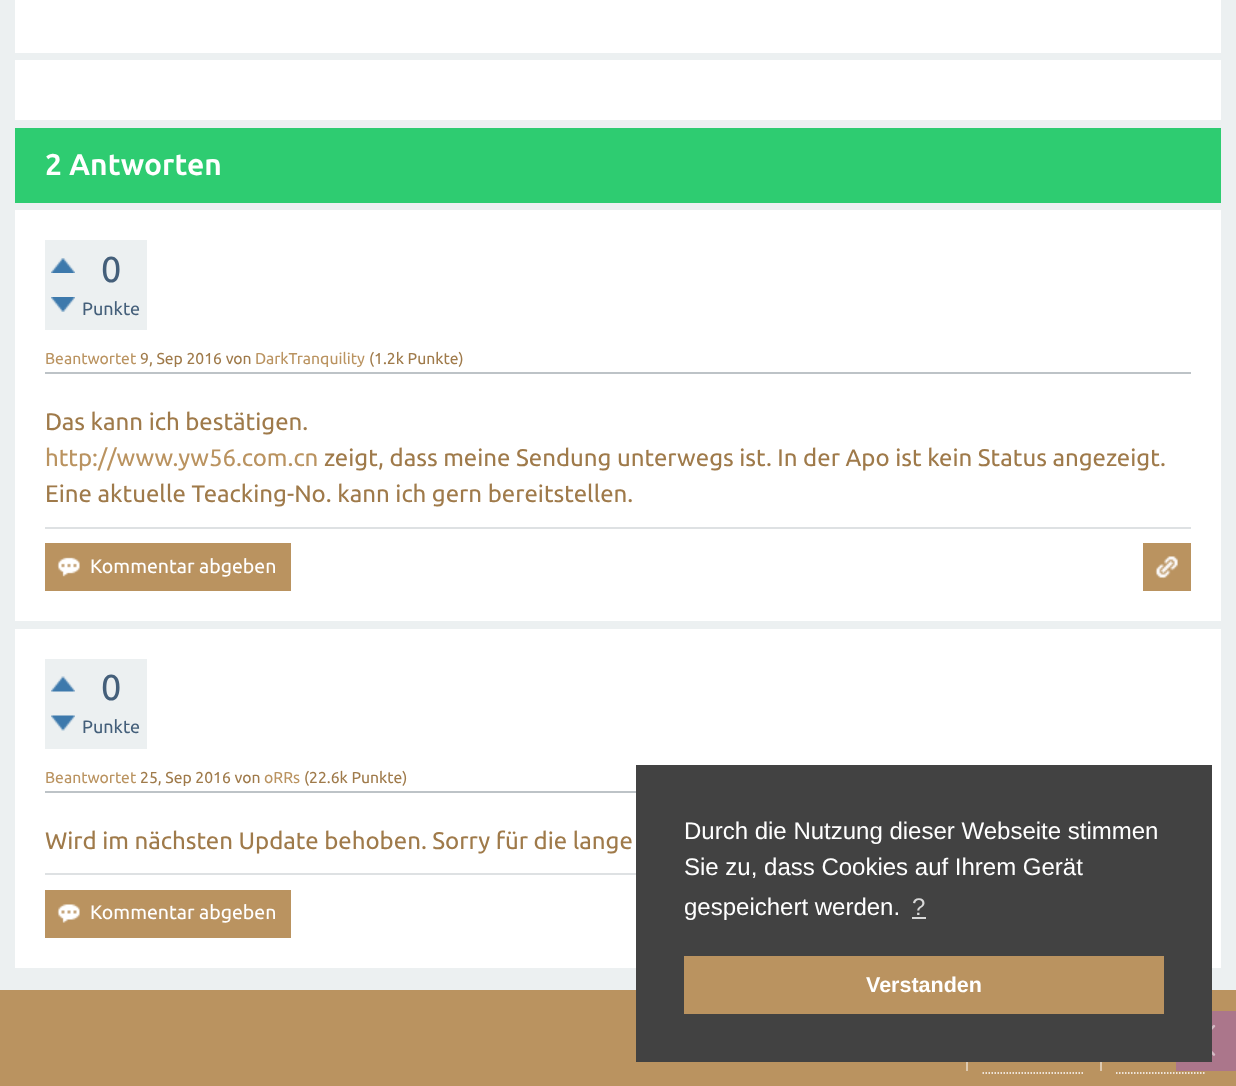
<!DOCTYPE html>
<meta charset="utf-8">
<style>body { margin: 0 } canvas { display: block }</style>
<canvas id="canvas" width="1236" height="1086"></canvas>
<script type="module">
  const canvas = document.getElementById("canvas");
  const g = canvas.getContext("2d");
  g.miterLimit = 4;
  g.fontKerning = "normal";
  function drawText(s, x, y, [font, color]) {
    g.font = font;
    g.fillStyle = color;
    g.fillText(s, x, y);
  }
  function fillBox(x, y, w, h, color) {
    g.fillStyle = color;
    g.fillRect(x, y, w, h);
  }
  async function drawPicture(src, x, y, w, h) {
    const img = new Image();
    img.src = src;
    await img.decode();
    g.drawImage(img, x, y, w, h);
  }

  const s1 = ["bold 30px Ubuntu", "#FFFFFF"];
  const s2 = ["36px Ubuntu", "#445F7A"];
  const s3 = ["18px Ubuntu", "#445F7A"];
  const s4 = ["15.75px Ubuntu", "#BA9360"];
  const s5 = ["15.75px Ubuntu", "#9F7A4A"];
  const s6 = ["24px Ubuntu", "#9F7A4A"];
  const s7 = ["24px Ubuntu", "#BA9360"];
  const s8 = ["19.5px Ubuntu", "#FFFFFF"];
  const s9 = ["24px Liberation Sans", "#FFFFFF"];
  const s10 = ["24px Liberation Sans", "#D9D9D9"];
  const s11 = ["bold 21.5px Liberation Sans", "#FFFFFF"];

  fillBox(0, 0, 1236, 1086, "#ECF0F1");
  fillBox(15, 0, 1206, 53, "#FFFFFF");
  fillBox(15, 60, 1206, 60, "#FFFFFF");
  fillBox(15, 128, 1206, 75, "#2ECC71");
  drawText("2 Antworten", 45, 175, s1);
  fillBox(15, 210, 1206, 411, "#FFFFFF");
  fillBox(45, 240, 102, 90, "#ECF0F1");
  await drawPicture("pic1.png", 51, 258, 24, 15);
  await drawPicture("pic2.png", 51, 297, 24, 15);
  drawText("0", 101, 282, s2);
  drawText("Punkte", 82, 315, s3);
  fillBox(45, 372, 1146, 2, "#BDC3C7");
  drawText("Beantwortet", 45, 364, s4);
  drawText("9, Sep 2016 von", 140, 364, s5);
  drawText("DarkTranquility", 255, 364, s4);
  drawText("(1.2k Punkte)", 369, 364, s5);
  drawText("Das kann ich bestätigen.", 45, 430, s6);
  drawText("http://www.yw56.com.cn", 45, 466, s7);
  drawText("zeigt, dass meine Sendung unterwegs ist. In der Apo ist kein Status angezeigt.", 324, 466, s6);
  drawText("Eine aktuelle Teacking-No. kann ich gern bereitstellen.", 45, 502, s6);
  fillBox(45, 527, 1146, 2, "#DEE1E3");
  fillBox(45, 543, 246, 48, "#BA9360");
  await drawPicture("pic3.png", 57, 557, 23, 20);
  drawText("Kommentar abgeben", 90, 573, s8);
  fillBox(1143, 543, 48, 48, "#BA9360");
  await drawPicture("pic4.png", 1155, 556, 23, 23);
  fillBox(15, 629, 1206, 339, "#FFFFFF");
  fillBox(45, 659, 102, 90, "#ECF0F1");
  await drawPicture("pic5.png", 51, 676, 24, 16);
  await drawPicture("pic6.png", 51, 715, 24, 16);
  drawText("0", 101, 700, s2);
  drawText("Punkte", 82, 733, s3);
  fillBox(45, 791, 591, 2, "#BDC3C7");
  drawText("Beantwortet", 45, 783, s4);
  drawText("25, Sep 2016 von", 140, 783, s5);
  drawText("oRRs", 264, 783, s4);
  drawText("(22.6k Punkte)", 304, 783, s5);
  drawText("Wird im nächsten Update behoben. Sorry für die lange", 45, 849, s6);
  fillBox(45, 873, 591, 2, "#DEE1E3");
  fillBox(45, 890, 246, 48, "#BA9360");
  await drawPicture("pic7.png", 57, 904, 23, 19);
  drawText("Kommentar abgeben", 90, 919, s8);
  fillBox(0, 990, 1236, 96, "#BA9360");
  fillBox(1176, 1011, 60, 60, "rgba(155, 89, 182, 0.5)");
  await drawPicture("pic8.png", 1212, 1024, 4, 32);
  fillBox(636, 765, 576, 297, "#424242");
  drawText("Durch die Nutzung dieser Webseite stimmen", 684, 839, s9);
  drawText("Sie zu, dass Cookies auf Ihrem Gerät", 684, 875, s9);
  drawText("gespeichert werden.", 684, 915, s9);
  drawText("?", 912, 915, s10);
  fillBox(912, 917, 14, 2, "#D9D9D9");
  fillBox(684, 956, 480, 58, "#BA9360");
  drawText("Verstanden", 866, 992, s11);
  fillBox(966, 1062, 2, 9, "#DDC9B0");
  fillBox(1100, 1062, 2, 9, "#DDC9B0");
  g.beginPath();
  g.moveTo(982.5, 1073);
  g.lineTo(1084.5, 1073);
  g.strokeStyle = "#FFFFFF";
  g.lineWidth = 1.5;
  g.setLineDash([1.5, 1.5]);
  g.stroke();
  g.beginPath();
  g.moveTo(1116, 1073);
  g.lineTo(1206, 1073);
  g.stroke();
</script>
